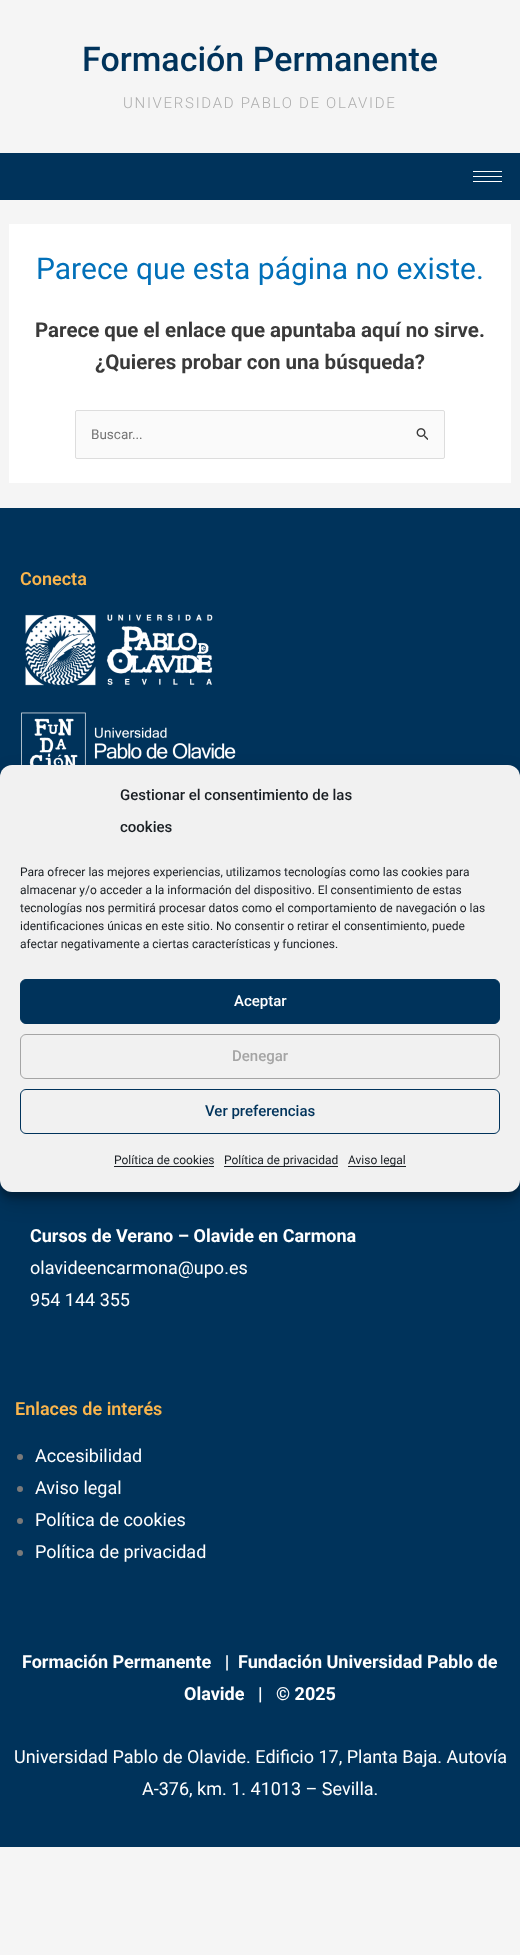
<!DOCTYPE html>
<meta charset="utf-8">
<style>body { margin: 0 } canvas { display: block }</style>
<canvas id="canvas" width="520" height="1955"></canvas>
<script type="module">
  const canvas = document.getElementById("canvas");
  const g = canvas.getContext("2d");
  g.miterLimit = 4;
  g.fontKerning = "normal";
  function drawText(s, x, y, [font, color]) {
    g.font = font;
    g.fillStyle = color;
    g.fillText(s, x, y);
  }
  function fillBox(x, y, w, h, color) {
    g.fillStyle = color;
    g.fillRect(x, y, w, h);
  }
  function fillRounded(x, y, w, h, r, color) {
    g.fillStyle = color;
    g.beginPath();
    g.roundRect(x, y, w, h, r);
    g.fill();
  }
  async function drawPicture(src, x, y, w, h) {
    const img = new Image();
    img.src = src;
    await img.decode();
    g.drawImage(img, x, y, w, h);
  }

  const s1 = ["500 34px Roboto", "#00335B"];
  const s2 = ["300 15px Roboto", "#AEAEAE"];
  const s3 = ["30px Roboto", "#0170B9"];
  const s4 = ["bold 20.5px Roboto", "#3A3A3A"];
  const s5 = ["13.5px Roboto", "#757575"];
  const s6 = ["600 18px Roboto", "#FAB54C"];
  const s7 = ["bold 18px Roboto", "#FFFFFF"];
  const s8 = ["18px Roboto", "#FFFFFF"];
  const s9 = ["500 15px Roboto", "#191E23"];
  const s10 = ["12px Roboto", "#191E23"];
  const s11 = ["500 15px Roboto", "#FFFFFF"];
  const s12 = ["500 15px Roboto", "#A5A5A5"];
  const s13 = ["500 15px Roboto", "#00335B"];

  fillBox(0, 0, 520, 1955, "#F5F5F5");
  drawText("Formación Permanente", 82, 71, s1);
  g.letterSpacing = "1.7px";
  drawText("UNIVERSIDAD PABLO DE OLAVIDE", 123, 108, s2);
  fillBox(0, 153, 520, 47, "#00335B");
  fillBox(473, 171, 29, 1, "#FFFFFF");
  fillBox(473, 176, 29, 1, "#FFFFFF");
  fillBox(473, 181, 29, 1, "#FFFFFF");
  fillBox(9, 224, 502, 259, "#FFFFFF");
  g.letterSpacing = "0px";
  drawText("Parece que esta página no existe.", 36, 279, s3);
  drawText("Parece que el enlace que apuntaba aquí no sirve.", 35, 337, s4);
  drawText("¿Quieres probar con una búsqueda?", 95, 369, s4);
  g.fillStyle = "#FAFAFA";
  g.beginPath();
  g.roundRect(75.5, 410.5, 369, 48, 1.5);
  g.fill();
  g.strokeStyle = "#DDDDDD";
  g.stroke();
  drawText("Buscar...", 91, 439, s5);
  await drawPicture("pic1.png", 416, 428, 12, 12);
  fillBox(0, 508, 520, 1339, "#00335B");
  drawText("Conecta", 20, 585, s6);
  await drawPicture("pic2.png", 25, 614, 188, 72);
  await drawPicture("pic3.png", 21, 712, 215, 53);
  drawText("Cursos de Verano – Olavide en Carmona", 30, 1242, s7);
  drawText("olavideencarmona@upo.es", 30, 1274, s8);
  drawText("954 144 355", 30, 1306, s8);
  drawText("Enlaces de interés", 15, 1415, s6);
  g.fillStyle = "#7A7A7A";
  g.beginPath();
  g.arc(20, 1457, 3, 0, Math.PI * 2);
  g.fill();
  drawText("Accesibilidad", 35, 1462, s8);
  g.fillStyle = "#7A7A7A";
  g.beginPath();
  g.arc(20, 1489, 3, 0, Math.PI * 2);
  g.fill();
  drawText("Aviso legal", 35, 1494, s8);
  g.fillStyle = "#7A7A7A";
  g.beginPath();
  g.arc(20, 1521, 3, 0, Math.PI * 2);
  g.fill();
  drawText("Política de cookies", 35, 1526, s8);
  g.fillStyle = "#7A7A7A";
  g.beginPath();
  g.arc(20, 1553, 3, 0, Math.PI * 2);
  g.fill();
  drawText("Política de privacidad", 35, 1558, s8);
  drawText("Formación Permanente   |", 22, 1668, s7);
  drawText("Fundación Universidad Pablo de", 238, 1668, s7);
  drawText("Olavide", 184, 1700, s7);
  drawText("|   © 2025", 258, 1700, s7);
  drawText("Universidad Pablo de Olavide. Edificio 17, Planta Baja. Autovía", 14, 1763, s8);
  drawText("A-376, km. 1. 41013 – Sevilla.", 142, 1795, s8);
  g.fillStyle = "rgba(0, 0, 0, 0.23)";
  g.filter = "blur(3px)";
  g.beginPath();
  g.roundRect(0, 771, 520, 427, 12);
  g.fill();
  g.filter = "none";
  g.fillStyle = "rgba(0, 0, 0, 0.19)";
  g.filter = "blur(10px)";
  g.beginPath();
  g.roundRect(0, 775, 520, 427, 12);
  g.fill();
  g.filter = "none";
  fillRounded(0, 765, 520, 427, 12, "#F1F1F1");
  drawText("Gestionar el consentimiento de las", 120, 800, s9);
  drawText("cookies", 120, 832, s9);
  drawText("Para ofrecer las mejores experiencias, utilizamos tecnologías como las cookies para", 20, 876, s10);
  drawText("almacenar y/o acceder a la información del dispositivo. El consentimiento de estas", 20, 894, s10);
  drawText("tecnologías nos permitirá procesar datos como el comportamiento de navegación o las", 20, 912, s10);
  drawText("identificaciones únicas en este sitio. No consentir o retirar el consentimiento, puede", 20, 930, s10);
  drawText("afectar negativamente a ciertas características y funciones.", 20, 948, s10);
  g.fillStyle = "#00335B";
  g.beginPath();
  g.roundRect(20.5, 979.5, 479, 44, 5.5);
  g.fill();
  g.strokeStyle = "#00335B";
  g.stroke();
  drawText("Aceptar", 234, 1006, s11);
  g.beginPath();
  g.roundRect(20.5, 1034.5, 479, 44, 5.5);
  g.strokeStyle = "#A5A5A5";
  g.stroke();
  drawText("Denegar", 232, 1061, s12);
  g.beginPath();
  g.roundRect(20.5, 1089.5, 479, 44, 5.5);
  g.strokeStyle = "#00335B";
  g.stroke();
  drawText("Ver preferencias", 205, 1116, s13);
  drawText("Política de cookies", 114, 1164, s10);
  fillBox(114, 1166, 100, 1, "#191E23");
  fillBox(224, 1166, 114, 1, "#191E23");
  drawText("Política de privacidad", 224, 1164, s10);
  fillBox(348, 1166, 58, 1, "#191E23");
  drawText("Aviso legal", 348, 1164, s10);
</script>
